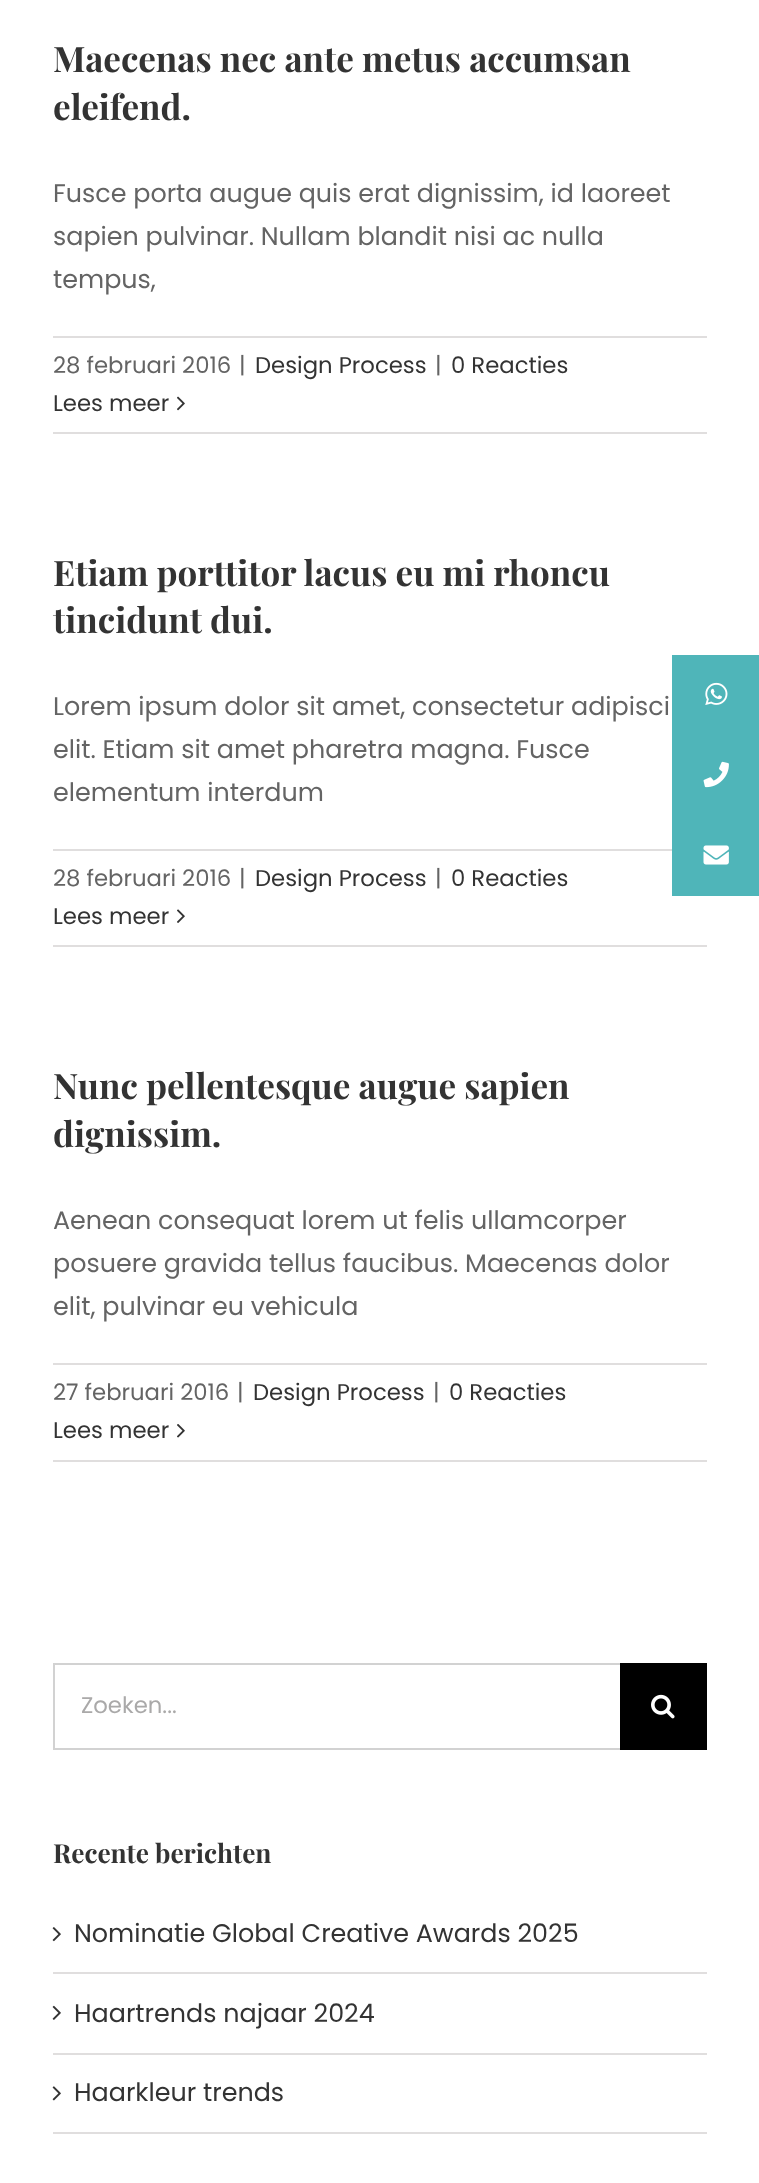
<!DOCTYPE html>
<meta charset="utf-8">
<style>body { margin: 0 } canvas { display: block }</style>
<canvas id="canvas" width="759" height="2183"></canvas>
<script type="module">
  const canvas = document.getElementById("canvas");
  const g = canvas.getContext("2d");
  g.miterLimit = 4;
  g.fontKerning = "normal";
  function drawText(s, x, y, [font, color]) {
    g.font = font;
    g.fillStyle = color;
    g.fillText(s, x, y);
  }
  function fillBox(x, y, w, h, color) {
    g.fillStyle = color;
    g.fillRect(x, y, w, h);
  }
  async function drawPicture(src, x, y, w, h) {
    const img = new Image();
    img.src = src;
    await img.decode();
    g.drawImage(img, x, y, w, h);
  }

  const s1 = ["bold 35px Playfair Display", "#333333"];
  const s2 = ["25.4px Poppins", "#646464"];
  const s3 = ["22.75px Poppins", "#646464"];
  const s4 = ["22.75px Poppins", "#333333"];
  const s5 = ["22.75px Poppins", "#AAA9A9"];
  const s6 = ["bold 26.25px Playfair Display", "#333333"];
  const s7 = ["25.4px Poppins", "#333333"];

  fillBox(0, 0, 759, 2183, "#FFFFFF");
  drawText("Maecenas nec ante metus accumsan", 53, 72, s1);
  drawText("eleifend.", 53, 120, s1);
  drawText("Fusce porta augue quis erat dignissim, id laoreet", 53, 202, s2);
  drawText("sapien pulvinar. Nullam blandit nisi ac nulla", 53, 245, s2);
  drawText("tempus,", 53, 288, s2);
  fillBox(53, 336, 654, 2, "#E0DEDE");
  fillBox(53, 432, 654, 2, "#E0DEDE");
  drawText("28 februari 2016", 53, 373, s3);
  drawText("|", 239, 373, s3);
  drawText("Design Process", 255, 373, s4);
  drawText("|", 435, 373, s3);
  drawText("0 Reacties", 451, 373, s4);
  drawText("Lees meer", 53, 411, s4);
  await drawPicture("pic1.png", 177, 396, 8, 15);
  drawText("Etiam porttitor lacus eu mi rhoncu", 53, 586, s1);
  drawText("tincidunt dui.", 53, 633, s1);
  drawText("Lorem ipsum dolor sit amet, consectetur adipisci", 53, 715, s2);
  drawText("elit. Etiam sit amet pharetra magna. Fusce", 53, 758, s2);
  drawText("elementum interdum", 53, 801, s2);
  fillBox(53, 849, 619, 2, "#E0DEDE");
  fillBox(53, 945, 654, 2, "#E0DEDE");
  drawText("28 februari 2016", 53, 886, s3);
  drawText("|", 239, 886, s3);
  drawText("Design Process", 255, 886, s4);
  drawText("|", 435, 886, s3);
  drawText("0 Reacties", 451, 886, s4);
  drawText("Lees meer", 53, 924, s4);
  await drawPicture("pic2.png", 177, 909, 8, 14);
  drawText("Nunc pellentesque augue sapien", 53, 1099, s1);
  drawText("dignissim.", 53, 1147, s1);
  drawText("Aenean consequat lorem ut felis ullamcorper", 53, 1229, s2);
  drawText("posuere gravida tellus faucibus. Maecenas dolor", 53, 1272, s2);
  drawText("elit, pulvinar eu vehicula", 53, 1315, s2);
  fillBox(53, 1363, 654, 2, "#E0DEDE");
  fillBox(53, 1460, 654, 2, "#E0DEDE");
  drawText("27 februari 2016", 53, 1400, s3);
  drawText("|", 237, 1400, s3);
  drawText("Design Process", 253, 1400, s4);
  drawText("|", 433, 1400, s3);
  drawText("0 Reacties", 449, 1400, s4);
  drawText("Lees meer", 53, 1438, s4);
  await drawPicture("pic3.png", 177, 1424, 8, 14);
  fillBox(53, 1663, 567, 2, "#D2D2D2");
  fillBox(53, 1748, 567, 2, "#D2D2D2");
  fillBox(53, 1663, 2, 87, "#D2D2D2");
  drawText("Zoeken...", 81, 1713, s5);
  fillBox(620, 1663, 87, 87, "#000000");
  await drawPicture("pic4.png", 651, 1694, 24, 25);
  drawText("Recente berichten", 53, 1863, s6);
  fillBox(53, 1972, 654, 2, "#E0DEDE");
  await drawPicture("pic5.png", 52, 1927, 9, 15);
  drawText("Nominatie Global Creative Awards 2025", 74, 1942, s7);
  fillBox(53, 2053, 654, 2, "#E0DEDE");
  await drawPicture("pic6.png", 52, 2005, 9, 15);
  drawText("Haartrends najaar 2024", 74, 2022, s7);
  fillBox(53, 2132, 654, 2, "#E0DEDE");
  await drawPicture("pic7.png", 52, 2086, 9, 15);
  drawText("Haarkleur trends", 74, 2101, s7);
  fillBox(672, 655, 87, 241, "#4FB5B9");
  await drawPicture("pic8.png", 705, 682, 23, 23);
  await drawPicture("pic9.png", 703, 761, 26, 27);
  await drawPicture("pic10.png", 703, 845, 26, 20);
</script>
